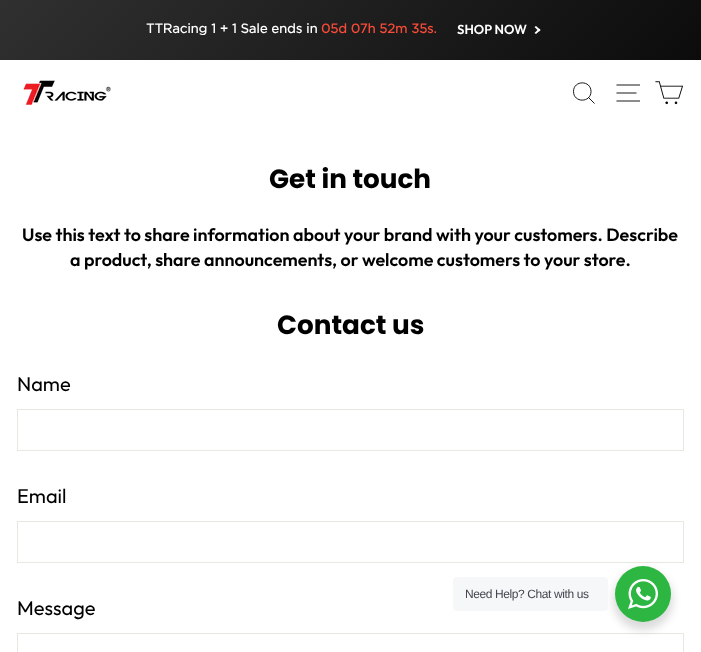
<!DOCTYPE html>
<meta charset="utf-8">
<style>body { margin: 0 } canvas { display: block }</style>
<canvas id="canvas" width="701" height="652"></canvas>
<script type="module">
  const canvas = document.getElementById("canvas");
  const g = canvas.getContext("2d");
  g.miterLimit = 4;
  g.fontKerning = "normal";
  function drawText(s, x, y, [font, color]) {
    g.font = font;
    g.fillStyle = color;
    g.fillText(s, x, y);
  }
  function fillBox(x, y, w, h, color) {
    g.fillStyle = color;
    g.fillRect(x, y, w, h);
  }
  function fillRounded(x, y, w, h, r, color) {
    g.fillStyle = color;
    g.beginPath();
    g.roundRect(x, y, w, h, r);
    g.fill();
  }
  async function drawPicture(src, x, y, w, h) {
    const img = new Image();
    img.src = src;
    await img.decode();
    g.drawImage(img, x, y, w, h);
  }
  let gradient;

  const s1 = ["bold 13px Gotham", "#FFFFFF"];
  const s2 = ["bold 13px Gotham", "#F84B38"];
  const s3 = ["600 13px Outfit", "#FFFFFF"];
  const s4 = ["bold 26.25px Poppins", "#000000"];
  const s5 = ["600 17.85px Outfit", "#000000"];
  const s6 = ["20px Outfit", "#000000"];
  const s7 = ["12px Liberation Sans", "#43474E"];

  fillBox(0, 0, 701, 652, "#FFFFFF");
  gradient = g.createLinearGradient(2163, 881, 641, -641);
  gradient.addColorStop(0, "#000000");
  gradient.addColorStop(0.33, "#4A2E40");
  gradient.addColorStop(0.67, "#000000");
  gradient.addColorStop(1, "#303030");
  g.fillStyle = gradient;
  g.fillRect(0, 0, 701, 60);
  drawText("TTRacing 1 + 1 Sale ends in", 146, 33, s1);
  drawText("05d 07h 52m 35s.", 321, 33, s2);
  drawText("SHOP NOW", 457, 34, s3);
  g.beginPath();
  g.moveTo(534.5, 27);
  g.lineTo(536, 26);
  g.lineTo(540.5, 30);
  g.lineTo(539, 31.5);
  g.closePath();
  g.fill();
  g.beginPath();
  g.moveTo(534.5, 33);
  g.lineTo(539, 28.5);
  g.lineTo(540.5, 30);
  g.lineTo(536, 34);
  g.closePath();
  g.fill();
  await drawPicture("pic1.png", 23, 80, 88, 25);
  g.beginPath();
  g.moveTo(591, 91.5);
  g.bezierCurveTo(591, 103, 573.5, 103, 573.5, 91.5);
  g.bezierCurveTo(573.5, 80, 591, 80, 591, 91.5);
  g.closePath();
  g.moveTo(594.5, 103.5);
  g.lineTo(588.5, 97.5);
  g.strokeStyle = "#000000";
  g.lineWidth = 0.9;
  g.stroke();
  g.beginPath();
  g.moveTo(616.5, 85);
  g.lineTo(640, 85);
  g.moveTo(616.5, 93);
  g.lineTo(636.5, 93);
  g.moveTo(616.5, 101);
  g.lineTo(640, 101);
  g.stroke();
  await drawPicture("pic2.png", 655, 81, 28, 24);
  drawText("Get in touch", 269, 188, s4);
  drawText("Use this text to share information about your brand with your customers. Describe", 22, 241, s5);
  drawText("a product, share announcements, or welcome customers to your store.", 70, 266, s5);
  drawText("Contact us", 277, 334, s4);
  drawText("Name", 17, 391, s6);
  g.strokeStyle = "#E8E8E1";
  g.lineWidth = 1;
  g.strokeRect(17.5, 409.5, 666, 41);
  drawText("Email", 17, 503, s6);
  g.strokeRect(17.5, 521.5, 666, 41);
  drawText("Message", 17, 615, s6);
  g.strokeRect(17.5, 633.5, 666, 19);
  g.fillStyle = "rgba(0, 0, 0, 0.14)";
  g.filter = "blur(4px)";
  g.beginPath();
  g.roundRect(613, 570, 60, 60, 30);
  g.fill();
  g.filter = "none";
  fillRounded(453, 577, 155, 34, 4, "#F5F7F9");
  g.letterSpacing = "-0.4px";
  drawText("Need Help? Chat with us", 465, 598, s7);
  g.fillStyle = "#2DB742";
  g.beginPath();
  g.arc(643, 594, 28, 0, Math.PI * 2);
  g.fill();
  await drawPicture("pic3.png", 628, 579, 30, 30);
</script>
